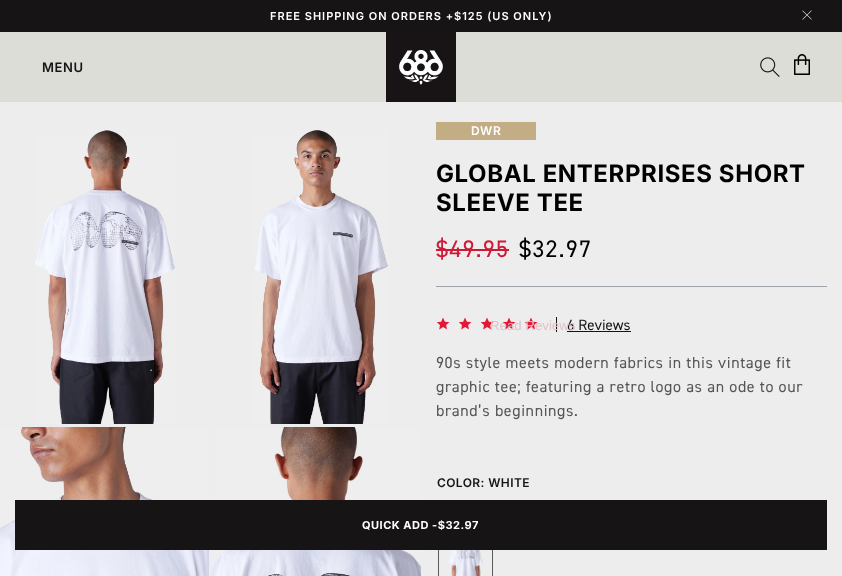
<!DOCTYPE html>
<meta charset="utf-8">
<style>body { margin: 0 } canvas { display: block }</style>
<canvas id="canvas" width="842" height="576"></canvas>
<script type="module">
  const canvas = document.getElementById("canvas");
  const g = canvas.getContext("2d");
  g.miterLimit = 4;
  g.fontKerning = "normal";
  function drawText(s, x, y, [font, color]) {
    g.font = font;
    g.fillStyle = color;
    g.fillText(s, x, y);
  }
  function fillBox(x, y, w, h, color) {
    g.fillStyle = color;
    g.fillRect(x, y, w, h);
  }
  async function drawPicture(src, x, y, w, h) {
    const img = new Image();
    img.src = src;
    await img.decode();
    g.drawImage(img, x, y, w, h);
  }

  const s1 = ["600 11px Inter", "#FFFFFF"];
  const s2 = ["600 13px Inter", "#171415"];
  const s3 = ["600 12px Inter", "#FFFFFF"];
  const s4 = ["bold 24px Inter", "#000000"];
  const s5 = ["24px 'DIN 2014'", "#CC1B36"];
  const s6 = ["24px 'DIN 2014'", "#000000"];
  const s7 = ["15px 'DIN 2014'", "#171415"];
  const s8 = ["13.25px Liberation Sans", "#E1C3C7"];
  const s9 = ["16px 'DIN 2014'", "#565455"];
  const s10 = ["600 12px Inter", "#171415"];
  const s11 = ["bold 11px Inter", "#FFFFFF"];

  fillBox(0, 0, 842, 576, "#EDEDED");
  fillBox(0, 0, 842, 32, "#171415");
  g.letterSpacing = "1px";
  drawText("FREE SHIPPING ON ORDERS +$125 (US ONLY)", 270, 20, s1);
  await drawPicture("pic1.png", 802, 10, 10, 10);
  fillBox(0, 32, 842, 70, "#DDDDD7");
  g.letterSpacing = "0.6px";
  drawText("MENU", 42, 72, s2);
  await drawPicture("pic2.png", 386, 32, 70, 70);
  await drawPicture("pic3.png", 760, 57, 20, 20);
  await drawPicture("pic4.png", 794, 54, 16, 21);
  await drawPicture("pic5.png", 35, 130, 140, 294);
  await drawPicture("pic6.png", 254, 130, 134, 294);
  await drawPicture("pic7.png", 0, 427, 209, 149);
  await drawPicture("pic8.png", 212, 427, 209, 149);
  fillBox(436, 122, 100, 18, "#C3AD85");
  drawText("DWR", 471, 135, s3);
  drawText("GLOBAL ENTERPRISES SHORT", 436, 182, s4);
  drawText("SLEEVE TEE", 436, 211, s4);
  fillBox(436, 286, 391, 1, "#9FA3AA");
  g.letterSpacing = "1.25px";
  drawText("$49.95", 436, 257, s5);
  fillBox(436, 249, 73, 2, "#CC1B36");
  drawText("$32.97", 519, 257, s6);
  await drawPicture("pic9.png", 480, 317, 14, 13);
  await drawPicture("pic9.png", 502, 317, 14, 13);
  await drawPicture("pic9.png", 524, 317, 14, 13);
  fillBox(556, 317, 1, 15, "#171415");
  g.letterSpacing = "0px";
  drawText("6 Reviews", 567, 330, s7);
  drawText("Read Reviews", 490, 330, s8);
  await drawPicture("pic9.png", 436, 317, 14, 13);
  await drawPicture("pic9.png", 458, 317, 14, 13);
  fillBox(567, 331, 64, 1, "#171415");
  g.letterSpacing = "0.6px";
  drawText("90s style meets modern fabrics in this vintage fit", 436, 368, s9);
  drawText("graphic tee; featuring a retro logo as an ode to our", 436, 392, s9);
  drawText("brand’s beginnings.", 436, 416, s9);
  g.letterSpacing = "0.4px";
  drawText("COLOR: WHITE", 437, 487, s10);
  await drawPicture("pic10.png", 448, 550, 35, 26);
  g.strokeStyle = "#5A5A5A";
  g.strokeRect(438.5, 521.5, 54, 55);
  fillBox(15, 500, 812, 50, "#171415");
  g.letterSpacing = "0.5px";
  drawText("QUICK ADD -$32.97", 362, 529, s11);
</script>
